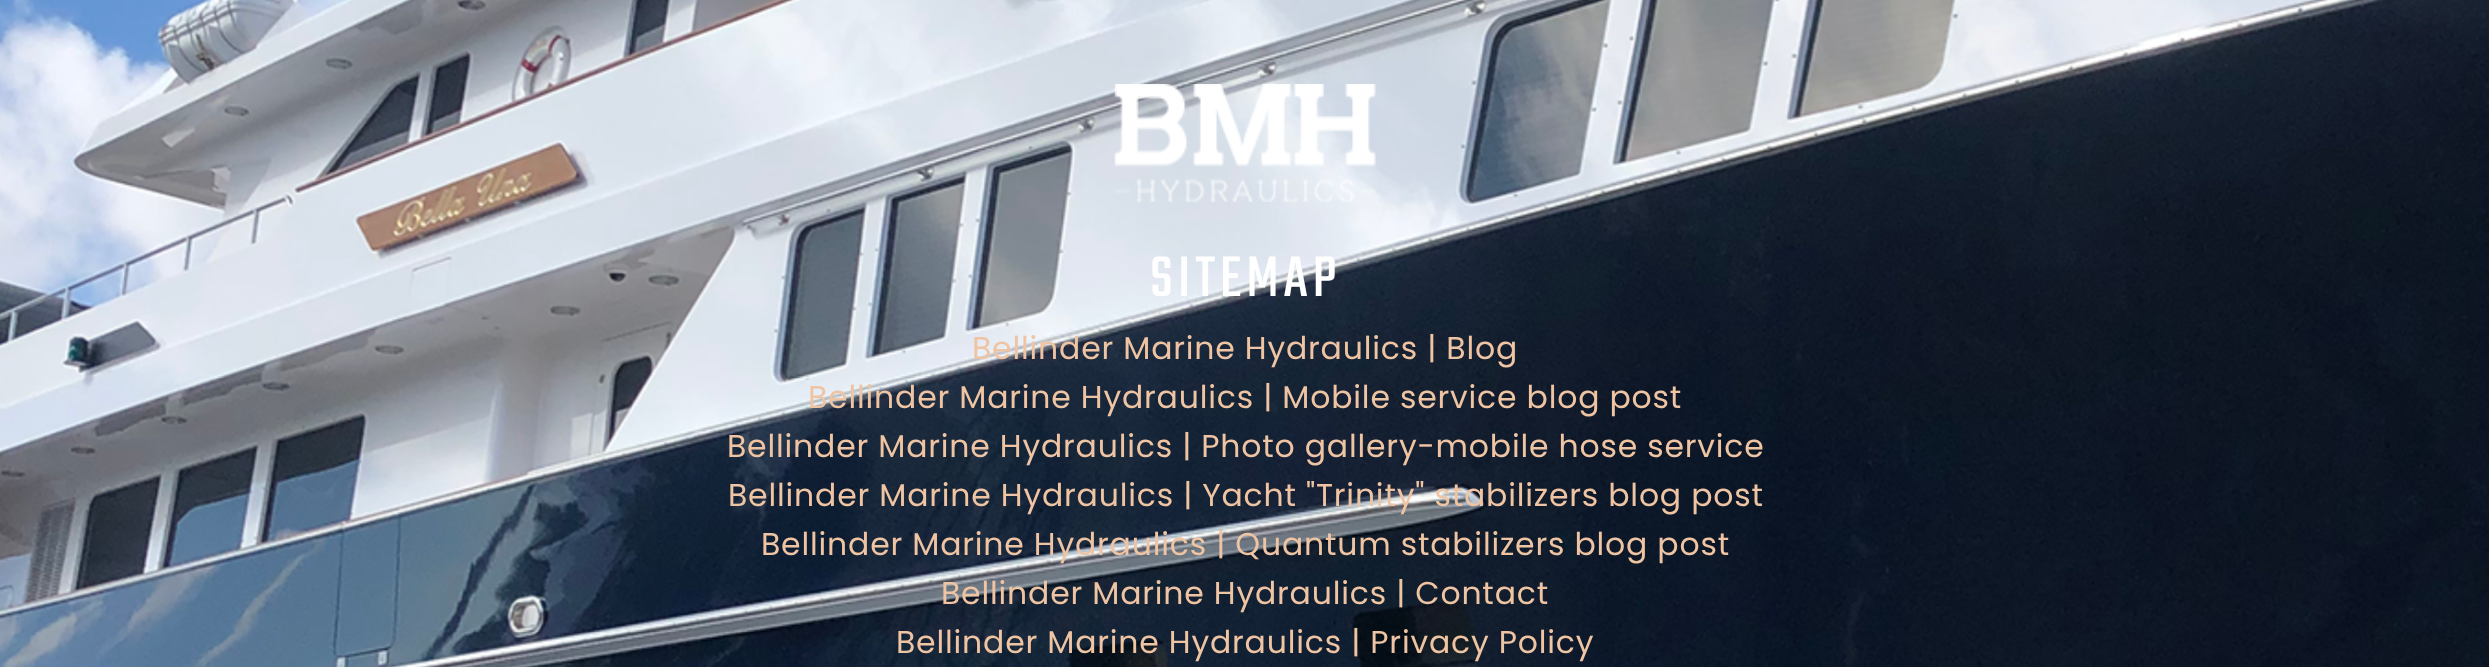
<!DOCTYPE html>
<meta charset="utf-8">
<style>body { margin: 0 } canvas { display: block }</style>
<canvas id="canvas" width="2489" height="667"></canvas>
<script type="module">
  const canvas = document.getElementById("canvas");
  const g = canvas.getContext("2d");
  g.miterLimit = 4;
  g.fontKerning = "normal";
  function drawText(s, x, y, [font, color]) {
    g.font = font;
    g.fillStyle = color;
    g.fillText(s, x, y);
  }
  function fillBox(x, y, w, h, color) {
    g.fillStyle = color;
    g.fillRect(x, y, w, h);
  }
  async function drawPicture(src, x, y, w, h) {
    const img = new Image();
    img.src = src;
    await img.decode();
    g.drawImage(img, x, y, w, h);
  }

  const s1 = ["63px Teko", "#FFFFFF"];
  const s2 = ["31.5px Poppins", "#EFC4A3"];

  fillBox(0, 0, 2489, 667, "#FFFFFF");
  await drawPicture("pic1.png", 0, 0, 2489, 667);
  await drawPicture("pic2.png", 1114, 84, 262, 118);
  g.letterSpacing = "4.75px";
  drawText("SITEMAP", 1150, 296, s1);
  g.letterSpacing = "0.8px";
  drawText("Bellinder Marine Hydraulics | Blog", 972, 359, s2);
  drawText("Bellinder Marine Hydraulics | Mobile service blog post", 808, 408, s2);
  drawText("Bellinder Marine Hydraulics | Photo gallery-mobile hose service", 727, 457, s2);
  drawText("Bellinder Marine Hydraulics | Yacht \"Trinity\" stabilizers blog post", 728, 506, s2);
  drawText("Bellinder Marine Hydraulics | Quantum stabilizers blog post", 761, 555, s2);
  drawText("Bellinder Marine Hydraulics | Contact", 941, 604, s2);
  drawText("Bellinder Marine Hydraulics | Privacy Policy", 896, 653, s2);
</script>
